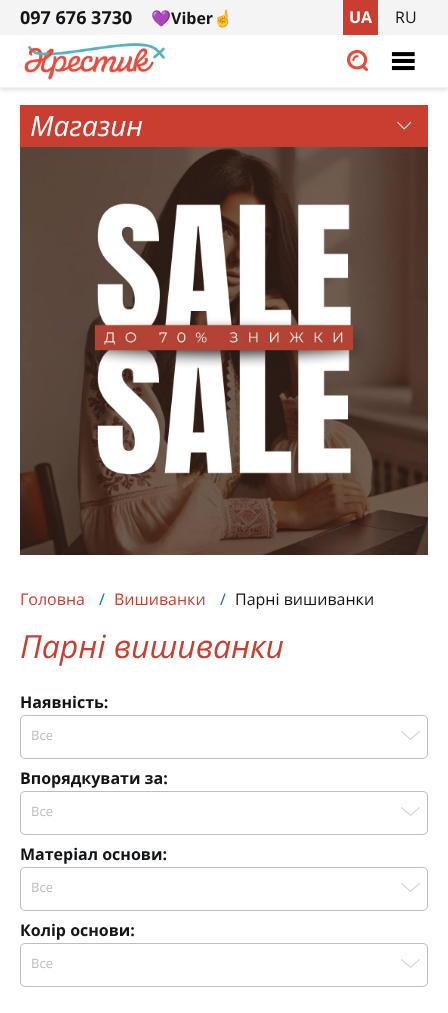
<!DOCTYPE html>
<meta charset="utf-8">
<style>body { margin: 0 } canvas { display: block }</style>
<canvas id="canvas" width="448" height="1013"></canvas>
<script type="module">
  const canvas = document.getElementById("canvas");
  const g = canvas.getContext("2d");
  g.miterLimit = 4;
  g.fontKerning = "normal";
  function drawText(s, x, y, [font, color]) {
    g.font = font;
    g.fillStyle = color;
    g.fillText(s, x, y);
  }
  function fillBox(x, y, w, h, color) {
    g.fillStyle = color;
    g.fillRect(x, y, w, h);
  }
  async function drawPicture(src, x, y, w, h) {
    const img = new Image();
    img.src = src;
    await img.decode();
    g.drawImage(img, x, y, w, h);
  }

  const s1 = ["bold 18px Open Sans", "#111517"];
  const s2 = ["bold 16px Noto Color Emoji", "#111517"];
  const s3 = ["bold 16px Open Sans", "#111517"];
  const s4 = ["16px Noto Color Emoji", "#111517"];
  const s5 = ["bold 16px Open Sans", "#FFFFFF"];
  const s6 = ["16px Open Sans", "#111517"];
  const s7 = ["italic 28px Open Sans", "#FFFFFF"];
  const s8 = ["16px Open Sans", "#C93E30"];
  const s9 = ["16px Open Sans", "#007B8A"];
  const s10 = ["italic 32px Open Sans", "#C93E30"];
  const s11 = ["13px Open Sans", "#BBBDBF"];

  fillBox(0, 0, 448, 1013, "#FFFFFF");
  g.fillStyle = "rgba(0, 0, 0, 0.12)";
  g.filter = "blur(2px)";
  g.beginPath();
  g.rect(0, 37, 448, 53);
  g.fill();
  g.filter = "none";
  fillBox(0, 35, 448, 52, "#FFFFFF");
  fillBox(0, 87, 448, 1, "#F4F4F4");
  fillBox(0, 0, 448, 35, "#F4F4F4");
  drawText("097 676 3730", 20, 24, s1);
  drawText("💜", 151, 24, s2);
  drawText("Viber", 171, 24, s3);
  drawText("☝️", 213, 24, s4);
  fillBox(343, 0, 35, 35, "#C93E30");
  drawText("UA", 349, 23, s5);
  drawText("RU", 395, 23, s6);
  await drawPicture("pic1.png", 24, 43, 141, 37);
  await drawPicture("pic2.png", 347, 50, 21, 21);
  await drawPicture("pic3.png", 391, 52, 24, 19);
  fillBox(20, 105, 408, 42, "#C93E30");
  drawText("Магазин", 30, 136, s7);
  await drawPicture("pic4.png", 397, 122, 15, 8);
  await drawPicture("pic5.png", 20, 147, 408, 408);
  drawText("Головна", 20, 605, s8);
  drawText("/", 99, 605, s9);
  drawText("Вишиванки", 114, 605, s8);
  drawText("/", 220, 605, s9);
  drawText("Парні вишиванки", 235, 605, s6);
  drawText("Парні вишиванки", 20, 658, s10);
  drawText("Наявність:", 20, 708, s3);
  g.beginPath();
  g.roundRect(20.5, 715.5, 407, 43, 4.5);
  g.strokeStyle = "#BBBDBF";
  g.stroke();
  drawText("Все", 31, 740, s11);
  await drawPicture("pic6.png", 401, 731, 19, 9);
  drawText("Впорядкувати за:", 20, 784, s3);
  g.beginPath();
  g.roundRect(20.5, 791.5, 407, 43, 4.5);
  g.stroke();
  drawText("Все", 31, 816, s11);
  await drawPicture("pic6.png", 401, 807, 19, 9);
  drawText("Матеріал основи:", 20, 860, s3);
  g.beginPath();
  g.roundRect(20.5, 867.5, 407, 43, 4.5);
  g.stroke();
  drawText("Все", 31, 892, s11);
  await drawPicture("pic6.png", 401, 883, 19, 9);
  drawText("Колір основи:", 20, 936, s3);
  g.beginPath();
  g.roundRect(20.5, 943.5, 407, 43, 4.5);
  g.stroke();
  drawText("Все", 31, 968, s11);
  await drawPicture("pic6.png", 401, 959, 19, 9);
</script>
